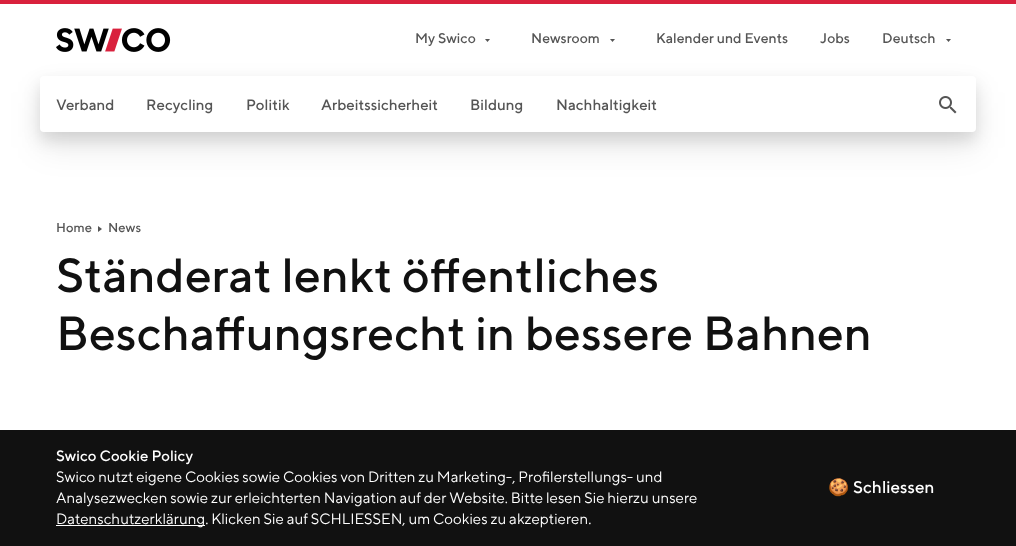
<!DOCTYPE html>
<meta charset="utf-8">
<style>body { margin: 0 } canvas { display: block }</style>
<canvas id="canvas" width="1016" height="546"></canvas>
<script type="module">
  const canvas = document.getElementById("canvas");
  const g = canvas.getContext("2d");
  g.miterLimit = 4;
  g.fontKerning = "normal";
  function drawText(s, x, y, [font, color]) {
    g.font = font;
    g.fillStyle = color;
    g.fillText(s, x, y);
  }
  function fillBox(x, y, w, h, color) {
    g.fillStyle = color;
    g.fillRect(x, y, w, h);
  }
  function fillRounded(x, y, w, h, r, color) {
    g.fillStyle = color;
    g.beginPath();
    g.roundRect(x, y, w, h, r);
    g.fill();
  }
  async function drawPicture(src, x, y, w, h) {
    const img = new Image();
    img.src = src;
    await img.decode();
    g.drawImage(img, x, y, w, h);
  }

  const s1 = ["14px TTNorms", "#555555"];
  const s2 = ["15px TTNorms", "#555555"];
  const s3 = ["13px TTNorms", "#555555"];
  const s4 = ["48px TTNorms", "#111111"];
  const s5 = ["15px TTNorms", "#FFFFFF"];
  const s6 = ["15px 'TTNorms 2'", "#FFFFFF"];
  const s7 = ["17px Noto Color Emoji", "#FFFFFF"];
  const s8 = ["17px TTNorms", "#FFFFFF"];

  fillBox(0, 0, 1016, 546, "#FFFFFF");
  fillBox(0, 0, 1016, 4, "#D9213D");
  await drawPicture("pic1.png", 56, 28, 115, 24);
  drawText("My Swico", 415, 43, s1);
  g.beginPath();
  g.moveTo(485, 39);
  g.lineTo(487.5, 42);
  g.lineTo(490, 39);
  g.closePath();
  g.fill("evenodd");
  drawText("Newsroom", 531, 43, s1);
  g.beginPath();
  g.moveTo(610, 39);
  g.lineTo(612.5, 42);
  g.lineTo(615, 39);
  g.closePath();
  g.fill("evenodd");
  drawText("Kalender und Events", 656, 43, s1);
  drawText("Jobs", 820, 43, s1);
  drawText("Deutsch", 882, 43, s1);
  g.beginPath();
  g.moveTo(946, 39);
  g.lineTo(948.5, 42);
  g.lineTo(951, 39);
  g.closePath();
  g.fill("evenodd");
  g.fillStyle = "rgba(0, 0, 0, 0.12)";
  g.filter = "blur(8px)";
  g.beginPath();
  g.roundRect(40, 84, 936, 56, 4);
  g.fill();
  g.filter = "none";
  g.fillStyle = "rgba(0, 0, 0, 0.08)";
  g.filter = "blur(16px)";
  g.beginPath();
  g.roundRect(40, 92, 936, 56, 4);
  g.fill();
  g.filter = "none";
  fillRounded(40, 76, 936, 56, 4, "#FFFFFF");
  drawText("Verband", 56, 110, s2);
  drawText("Recycling", 146, 110, s2);
  drawText("Politik", 246, 110, s2);
  drawText("Arbeitssicherheit", 321, 110, s2);
  drawText("Bildung", 470, 110, s2);
  drawText("Nachhaltigkeit", 556, 110, s2);
  await drawPicture("pic2.png", 939, 96, 18, 18);
  drawText("Home", 56, 232, s3);
  g.beginPath();
  g.moveTo(98, 232);
  g.lineTo(102, 229);
  g.lineTo(98, 226);
  g.closePath();
  g.fill("evenodd");
  drawText("News", 108, 232, s3);
  drawText("Ständerat lenkt öffentliches", 56, 292, s4);
  drawText("Beschaffungsrecht in bessere Bahnen", 56, 350, s4);
  fillBox(0, 430, 1016, 116, "#111111");
  drawText("Swico Cookie Policy", 56, 461, s5);
  drawText("Swico nutzt eigene Cookies sowie Cookies von Dritten zu Marketing-, Profilerstellungs- und", 56, 482, s6);
  drawText("Analysezwecken sowie zur erleichterten Navigation auf der Website. Bitte lesen Sie hierzu unsere", 56, 503, s6);
  fillBox(56, 525, 149, 1, "#FFFFFF");
  drawText("Datenschutzerklärung. Klicken Sie auf SCHLIESSEN, um Cookies zu akzeptieren.", 56, 524, s6);
  drawText("🍪", 828, 493, s7);
  drawText("Schliessen", 853, 493, s8);
</script>
